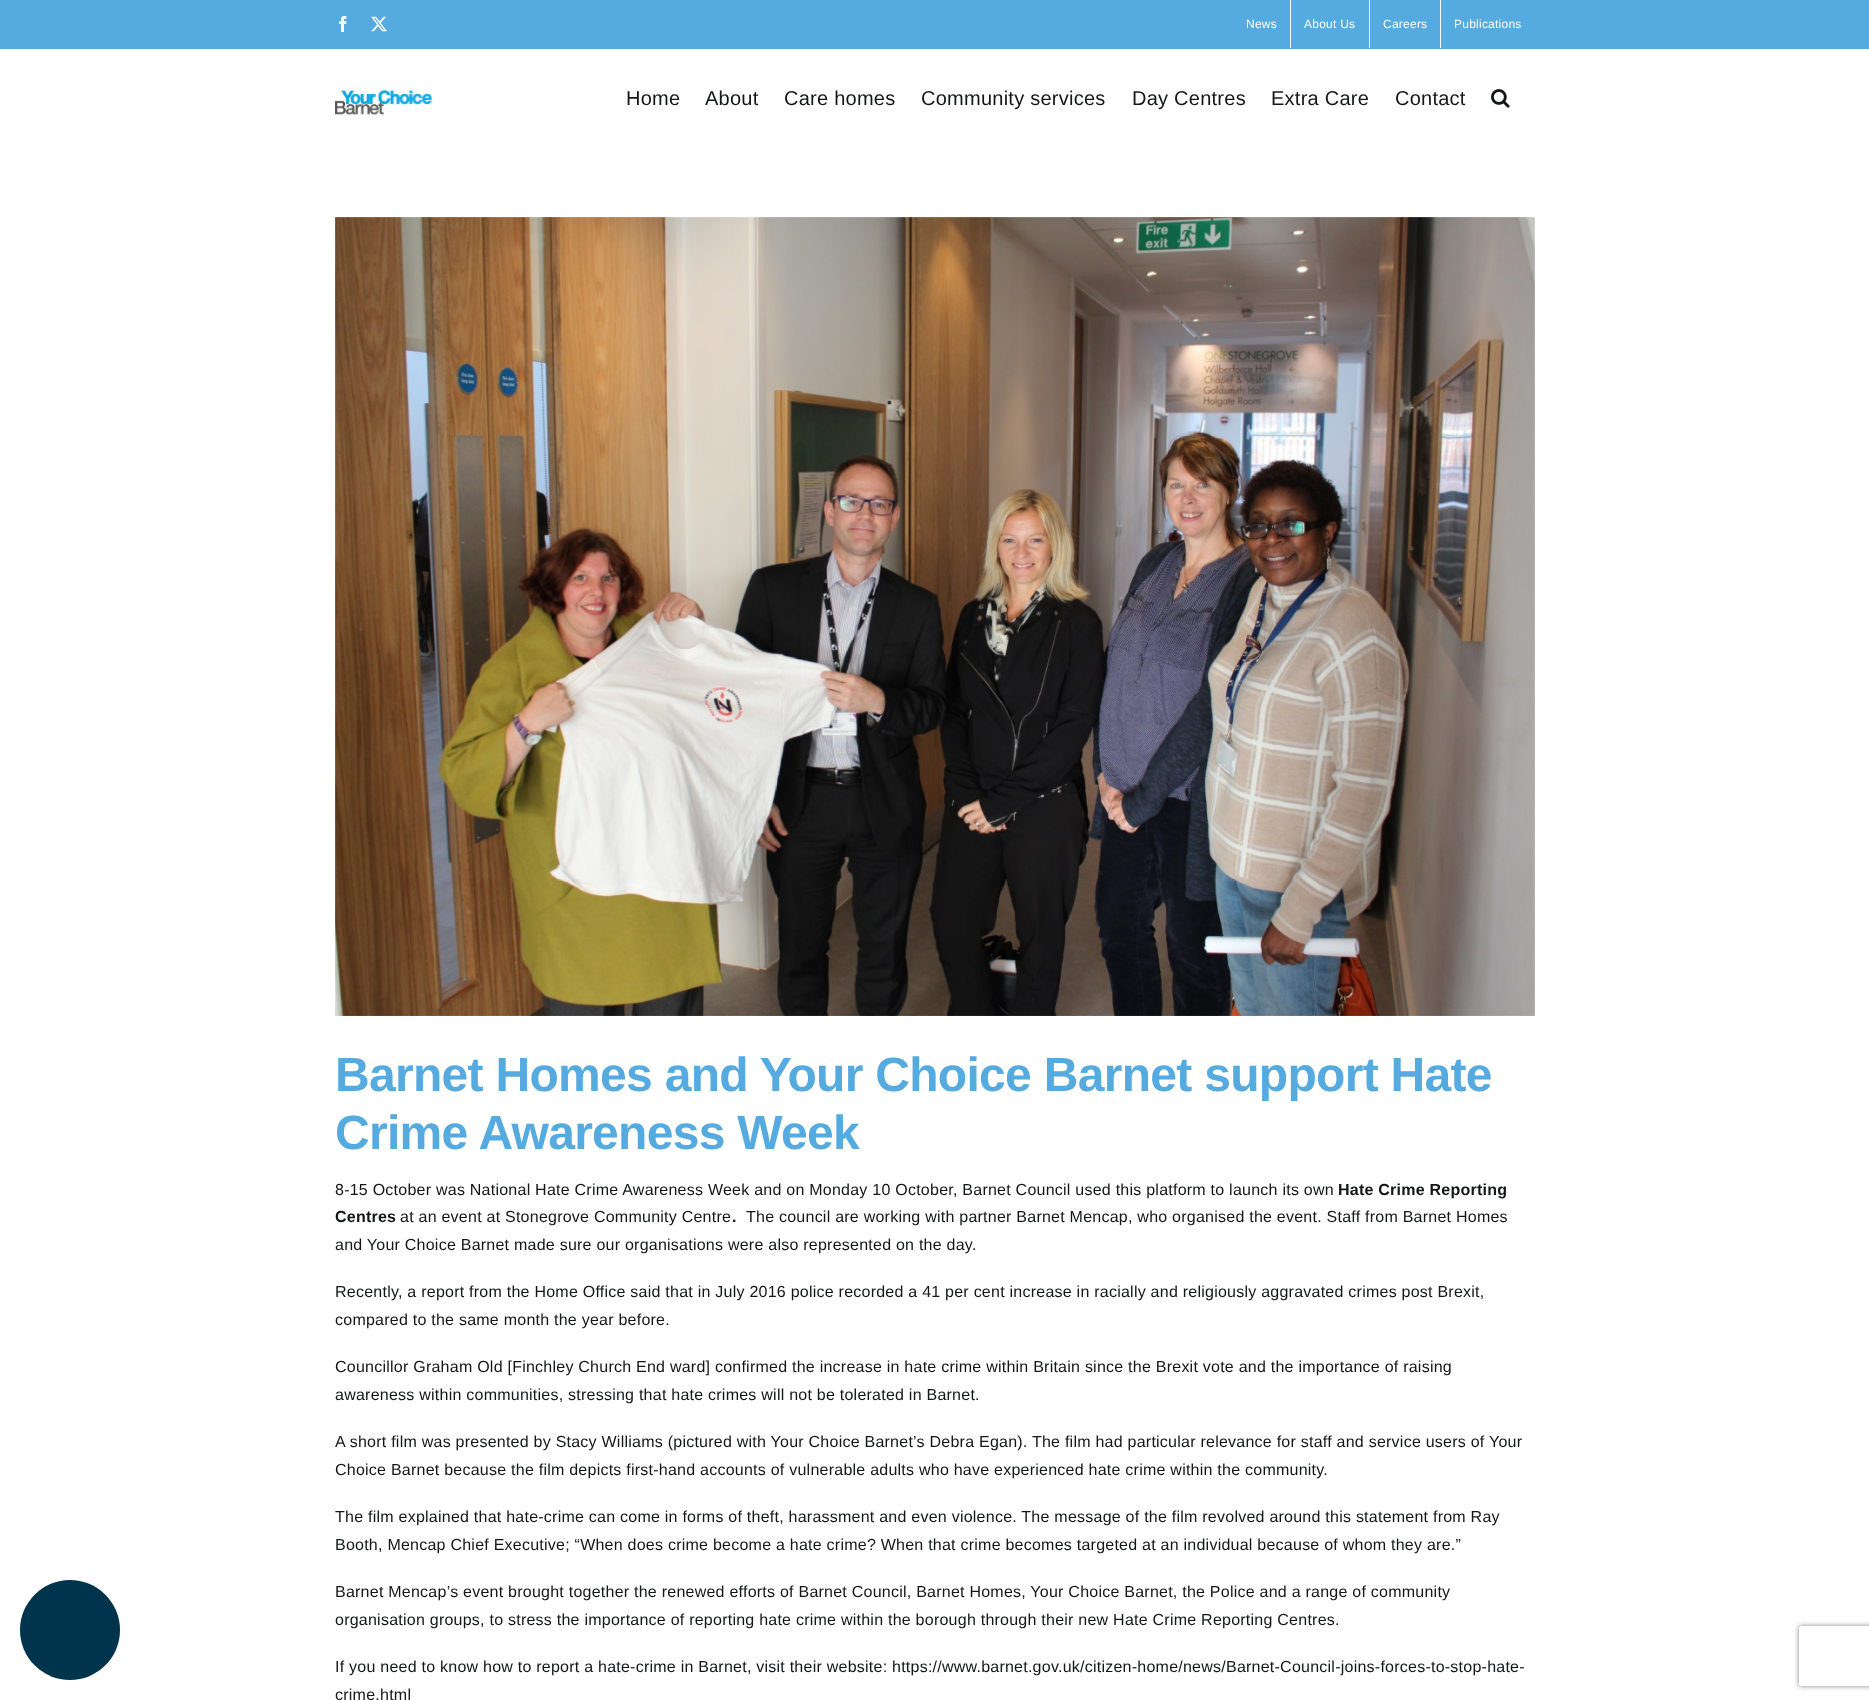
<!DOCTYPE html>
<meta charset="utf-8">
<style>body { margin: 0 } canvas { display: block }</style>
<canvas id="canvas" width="1869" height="1700"></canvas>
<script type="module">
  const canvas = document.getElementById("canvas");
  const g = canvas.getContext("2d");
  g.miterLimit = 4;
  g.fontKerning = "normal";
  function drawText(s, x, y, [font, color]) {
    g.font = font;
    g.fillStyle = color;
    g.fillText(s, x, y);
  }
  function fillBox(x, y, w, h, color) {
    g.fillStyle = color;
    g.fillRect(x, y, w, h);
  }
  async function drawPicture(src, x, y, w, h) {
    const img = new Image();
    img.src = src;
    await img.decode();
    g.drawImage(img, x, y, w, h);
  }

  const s1 = ["12px Liberation Sans", "#FFFFFF"];
  const s2 = ["20px Liberation Sans", "#141617"];
  const s3 = ["bold 48px Liberation Sans", "#55AAE0"];
  const s4 = ["16px Liberation Sans", "#141617"];
  const s5 = ["bold 16px Liberation Sans", "#141617"];

  fillBox(0, 0, 1869, 1700, "#FFFFFF");
  g.fillStyle = "#00344C";
  g.beginPath();
  g.arc(70, 1630, 50, 0, Math.PI * 2);
  g.fill();
  fillBox(0, 0, 1869, 49, "#55AAE0");
  await drawPicture("pic1.png", 339, 16, 8, 16);
  await drawPicture("pic2.png", 371, 16, 16, 16);
  g.letterSpacing = "0.24px";
  drawText("News", 1246, 28, s1);
  fillBox(1290, 0, 1, 48, "#FFFFFF");
  drawText("About Us", 1304, 28, s1);
  fillBox(1369, 0, 1, 48, "#FFFFFF");
  drawText("Careers", 1383, 28, s1);
  fillBox(1440, 0, 1, 48, "#FFFFFF");
  drawText("Publications", 1454, 28, s1);
  await drawPicture("pic3.png", 335, 90, 97, 26);
  g.letterSpacing = "0.25px";
  drawText("Home", 626, 105, s2);
  drawText("About", 705, 105, s2);
  drawText("Care homes", 784, 105, s2);
  drawText("Community services", 921, 105, s2);
  drawText("Day Centres", 1132, 105, s2);
  drawText("Extra Care", 1271, 105, s2);
  drawText("Contact", 1395, 105, s2);
  await drawPicture("pic4.png", 1491, 89, 19, 19);
  await drawPicture("pic5.png", 335, 217, 1200, 799);
  g.letterSpacing = "-0.7px";
  drawText("Barnet Homes and Your Choice Barnet support Hate", 335, 1091, s3);
  drawText("Crime Awareness Week", 335, 1149, s3);
  g.letterSpacing = "0.24px";
  drawText("8-15 October was National Hate Crime Awareness Week and on Monday 10 October, Barnet Council used this platform to launch its own", 335, 1195, s4);
  drawText("Hate Crime Reporting", 1338, 1195, s5);
  drawText("Centres", 335, 1222, s5);
  drawText("at an event at Stonegrove Community Centre", 400, 1222, s4);
  drawText(".", 732, 1222, s5);
  drawText("The council are working with partner Barnet Mencap, who organised the event. Staff from Barnet Homes", 746, 1222, s4);
  drawText("and Your Choice Barnet made sure our organisations were also represented on the day.", 335, 1250, s4);
  drawText("Recently, a report from the Home Office said that in July 2016 police recorded a 41 per cent increase in racially and religiously aggravated crimes post Brexit,", 335, 1297, s4);
  drawText("compared to the same month the year before.", 335, 1325, s4);
  drawText("Councillor Graham Old [Finchley Church End ward] confirmed the increase in hate crime within Britain since the Brexit vote and the importance of raising", 335, 1372, s4);
  drawText("awareness within communities, stressing that hate crimes will not be tolerated in Barnet.", 335, 1400, s4);
  drawText("A short film was presented by Stacy Williams (pictured with Your Choice Barnet’s Debra Egan). The film had particular relevance for staff and service users of Your", 335, 1447, s4);
  drawText("Choice Barnet because the film depicts first-hand accounts of vulnerable adults who have experienced hate crime within the community.", 335, 1475, s4);
  drawText("The film explained that hate-crime can come in forms of theft, harassment and even violence. The message of the film revolved around this statement from Ray", 335, 1522, s4);
  drawText("Booth, Mencap Chief Executive; “When does crime become a hate crime? When that crime becomes targeted at an individual because of whom they are.”", 335, 1550, s4);
  drawText("Barnet Mencap’s event brought together the renewed efforts of Barnet Council, Barnet Homes, Your Choice Barnet, the Police and a range of community", 335, 1597, s4);
  drawText("organisation groups, to stress the importance of reporting hate crime within the borough through their new Hate Crime Reporting Centres.", 335, 1625, s4);
  drawText("If you need to know how to report a hate-crime in Barnet, visit their website: https://www.barnet.gov.uk/citizen-home/news/Barnet-Council-joins-forces-to-stop-hate-", 335, 1672, s4);
  drawText("crime.html", 335, 1700, s4);
  g.save();
  g.beginPath();
  g.moveTo(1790, 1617);
  g.lineTo(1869, 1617);
  g.lineTo(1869, 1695);
  g.lineTo(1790, 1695);
  g.closePath();
  g.moveTo(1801, 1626);
  g.lineTo(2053, 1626);
  g.bezierCurveTo(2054, 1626, 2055, 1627, 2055, 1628);
  g.lineTo(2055, 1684);
  g.bezierCurveTo(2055, 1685, 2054, 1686, 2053, 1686);
  g.lineTo(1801, 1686);
  g.bezierCurveTo(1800, 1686, 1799, 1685, 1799, 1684);
  g.lineTo(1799, 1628);
  g.bezierCurveTo(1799, 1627, 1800, 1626, 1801, 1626);
  g.closePath();
  g.clip("evenodd");
  g.fillStyle = "#808080";
  g.filter = "blur(2.5px)";
  g.beginPath();
  g.roundRect(1799, 1626, 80, 60, 2);
  g.fill();
  g.filter = "none";
  g.restore();
</script>
